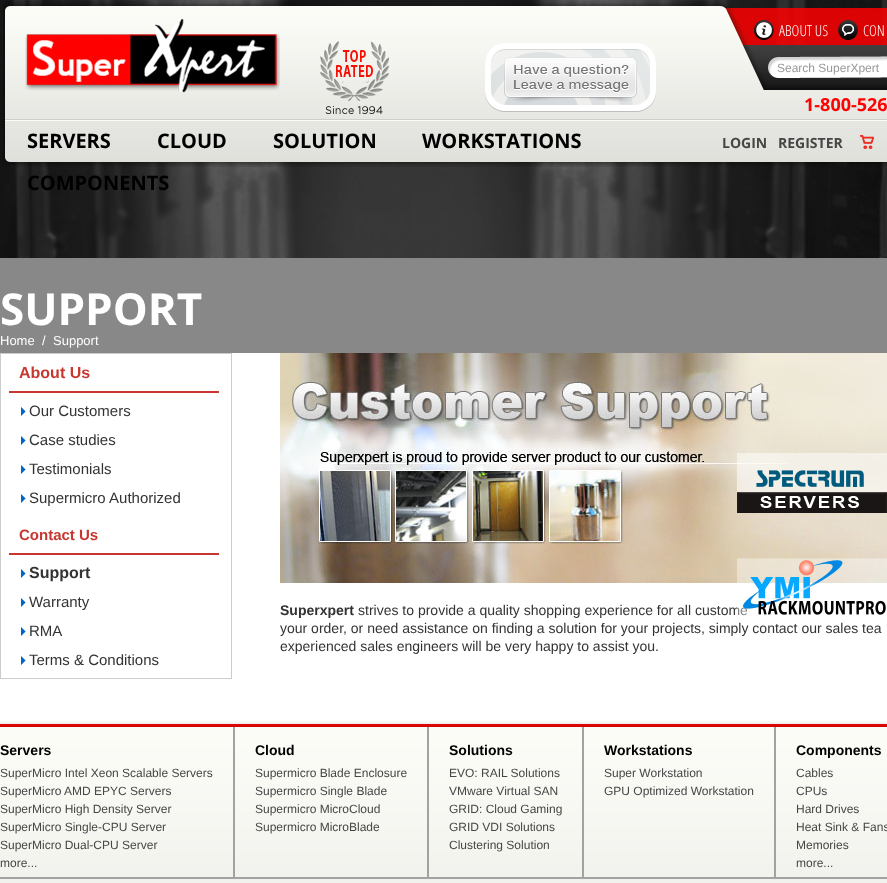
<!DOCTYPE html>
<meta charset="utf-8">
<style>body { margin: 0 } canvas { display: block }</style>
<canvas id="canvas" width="887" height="883"></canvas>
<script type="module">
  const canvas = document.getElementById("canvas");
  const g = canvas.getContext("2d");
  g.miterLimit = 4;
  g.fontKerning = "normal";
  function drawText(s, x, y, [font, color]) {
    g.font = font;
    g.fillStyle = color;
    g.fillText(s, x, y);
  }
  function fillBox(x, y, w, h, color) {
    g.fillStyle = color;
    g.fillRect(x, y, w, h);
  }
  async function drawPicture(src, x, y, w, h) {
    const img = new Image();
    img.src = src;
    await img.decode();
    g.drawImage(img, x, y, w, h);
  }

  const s1 = ["300 15px Open Sans", "#FFFFFF"];
  const s2 = ["12px Liberation Sans", "#999999"];
  const s3 = ["bold 18px Open Sans", "#FF0302"];
  const s4 = ["bold 20px Open Sans", "#000000"];
  const s5 = ["bold 14px Open Sans", "#464646"];
  const s6 = ["14px Liberation Sans", "#333333"];
  const s7 = ["bold 44px Open Sans", "#FFFFFF"];
  const s8 = ["13px Liberation Sans", "#FFFFFF"];
  const s9 = ["bold 16px Liberation Sans", "#C8372F"];
  const s10 = ["15px Liberation Sans", "#333333"];
  const s11 = ["bold 15px Liberation Sans", "#C8372F"];
  const s12 = ["bold 16px Liberation Sans", "#333333"];
  const s13 = ["bold 14px Liberation Sans", "#333333"];
  const s14 = ["bold 14px Liberation Sans", "#000000"];
  const s15 = ["12px Liberation Sans", "#464646"];

  fillBox(0, 0, 887, 883, "#FFFFFF");
  await drawPicture("pic1.png", 0, 0, 887, 258);
  await drawPicture("pic2.png", 3, 1, 884, 166);
  await drawPicture("pic3.png", 25, 19, 255, 74);
  await drawPicture("pic4.png", 754, 20, 20, 20);
  drawText("ABOUT US", 779, 36, s1);
  await drawPicture("pic5.png", 838, 20, 20, 20);
  drawText("CON", 863, 36, s1);
  await drawPicture("pic6.png", 320, 41, 69, 73);
  await drawPicture("pic7.png", 485, 43, 171, 69);
  drawText("Search SuperXpert", 777, 72, s2);
  drawText("1-800-526", 804, 111, s3);
  drawText("SERVERS", 27, 148, s4);
  drawText("CLOUD", 157, 148, s4);
  drawText("SOLUTION", 273, 148, s4);
  drawText("WORKSTATIONS", 422, 148, s4);
  drawText("COMPONENTS", 27, 190, s4);
  drawText("LOGIN", 722, 148, s5);
  drawText("REGISTER", 778, 148, s5);
  await drawPicture("pic8.png", 860, 135, 14, 14);
  await drawPicture("pic12.png", 280, 353, 607, 230);
  await drawPicture("pic9.png", 737, 453, 150, 60);
  drawText("strives to provide a quality shopping experience for all custome", 358, 615, s6);
  await drawPicture("pic10.png", 737, 558, 150, 60);
  fillBox(0, 258, 887, 95, "#888888");
  drawText("SUPPORT", 0, 325, s7);
  drawText("Home", 0, 345, s8);
  drawText("/", 42, 345, s8);
  drawText("Support", 53, 345, s8);
  g.strokeStyle = "#CCCCCC";
  g.strokeRect(0.5, 353.5, 231, 325);
  fillBox(9, 391, 210, 2, "#C8372F");
  drawText("About Us", 19, 378, s9);
  await drawPicture("pic11.png", 21, 407, 5, 9);
  drawText("Our Customers", 29, 416, s10);
  await drawPicture("pic11.png", 21, 436, 5, 9);
  drawText("Case studies", 29, 445, s10);
  await drawPicture("pic11.png", 21, 465, 5, 9);
  drawText("Testimonials", 29, 474, s10);
  await drawPicture("pic11.png", 21, 494, 5, 9);
  drawText("Supermicro Authorized", 29, 503, s10);
  fillBox(9, 553, 210, 2, "#C8372F");
  drawText("Contact Us", 19, 540, s11);
  await drawPicture("pic11.png", 21, 569, 5, 9);
  drawText("Support", 29, 578, s12);
  await drawPicture("pic11.png", 21, 598, 5, 9);
  drawText("Warranty", 29, 607, s10);
  await drawPicture("pic11.png", 21, 627, 5, 9);
  drawText("RMA", 29, 636, s10);
  await drawPicture("pic11.png", 21, 656, 5, 9);
  drawText("Terms & Conditions", 29, 665, s10);
  drawText("Superxpert", 280, 615, s13);
  drawText("your order, or need assistance on finding a solution for your projects, simply contact our sales tea", 280, 633, s6);
  drawText("experienced sales engineers will be very happy to assist you.", 280, 651, s6);
  await drawPicture("pic13.png", 0, 719, 887, 164);
  fillBox(0, 877, 887, 2, "#A2A2A2");
  drawText("Servers", 0, 755, s14);
  drawText("SuperMicro Intel Xeon Scalable Servers", 0, 777, s15);
  drawText("SuperMicro AMD EPYC Servers", 0, 795, s15);
  drawText("SuperMicro High Density Server", 0, 813, s15);
  drawText("SuperMicro Single-CPU Server", 0, 831, s15);
  drawText("SuperMicro Dual-CPU Server", 0, 849, s15);
  drawText("more...", 0, 867, s15);
  fillBox(233, 727, 2, 150, "#A2A2A2");
  drawText("Cloud", 255, 755, s14);
  drawText("Supermicro Blade Enclosure", 255, 777, s15);
  drawText("Supermicro Single Blade", 255, 795, s15);
  drawText("Supermicro MicroCloud", 255, 813, s15);
  drawText("Supermicro MicroBlade", 255, 831, s15);
  fillBox(427, 727, 2, 150, "#A2A2A2");
  drawText("Solutions", 449, 755, s14);
  drawText("EVO: RAIL Solutions", 449, 777, s15);
  drawText("VMware Virtual SAN", 449, 795, s15);
  drawText("GRID: Cloud Gaming", 449, 813, s15);
  drawText("GRID VDI Solutions", 449, 831, s15);
  drawText("Clustering Solution", 449, 849, s15);
  fillBox(582, 727, 2, 150, "#A2A2A2");
  drawText("Workstations", 604, 755, s14);
  drawText("Super Workstation", 604, 777, s15);
  drawText("GPU Optimized Workstation", 604, 795, s15);
  fillBox(774, 727, 2, 150, "#A2A2A2");
  drawText("Components", 796, 755, s14);
  drawText("Cables", 796, 777, s15);
  drawText("CPUs", 796, 795, s15);
  drawText("Hard Drives", 796, 813, s15);
  drawText("Heat Sink & Fans", 796, 831, s15);
  drawText("Memories", 796, 849, s15);
  drawText("more...", 796, 867, s15);
</script>
